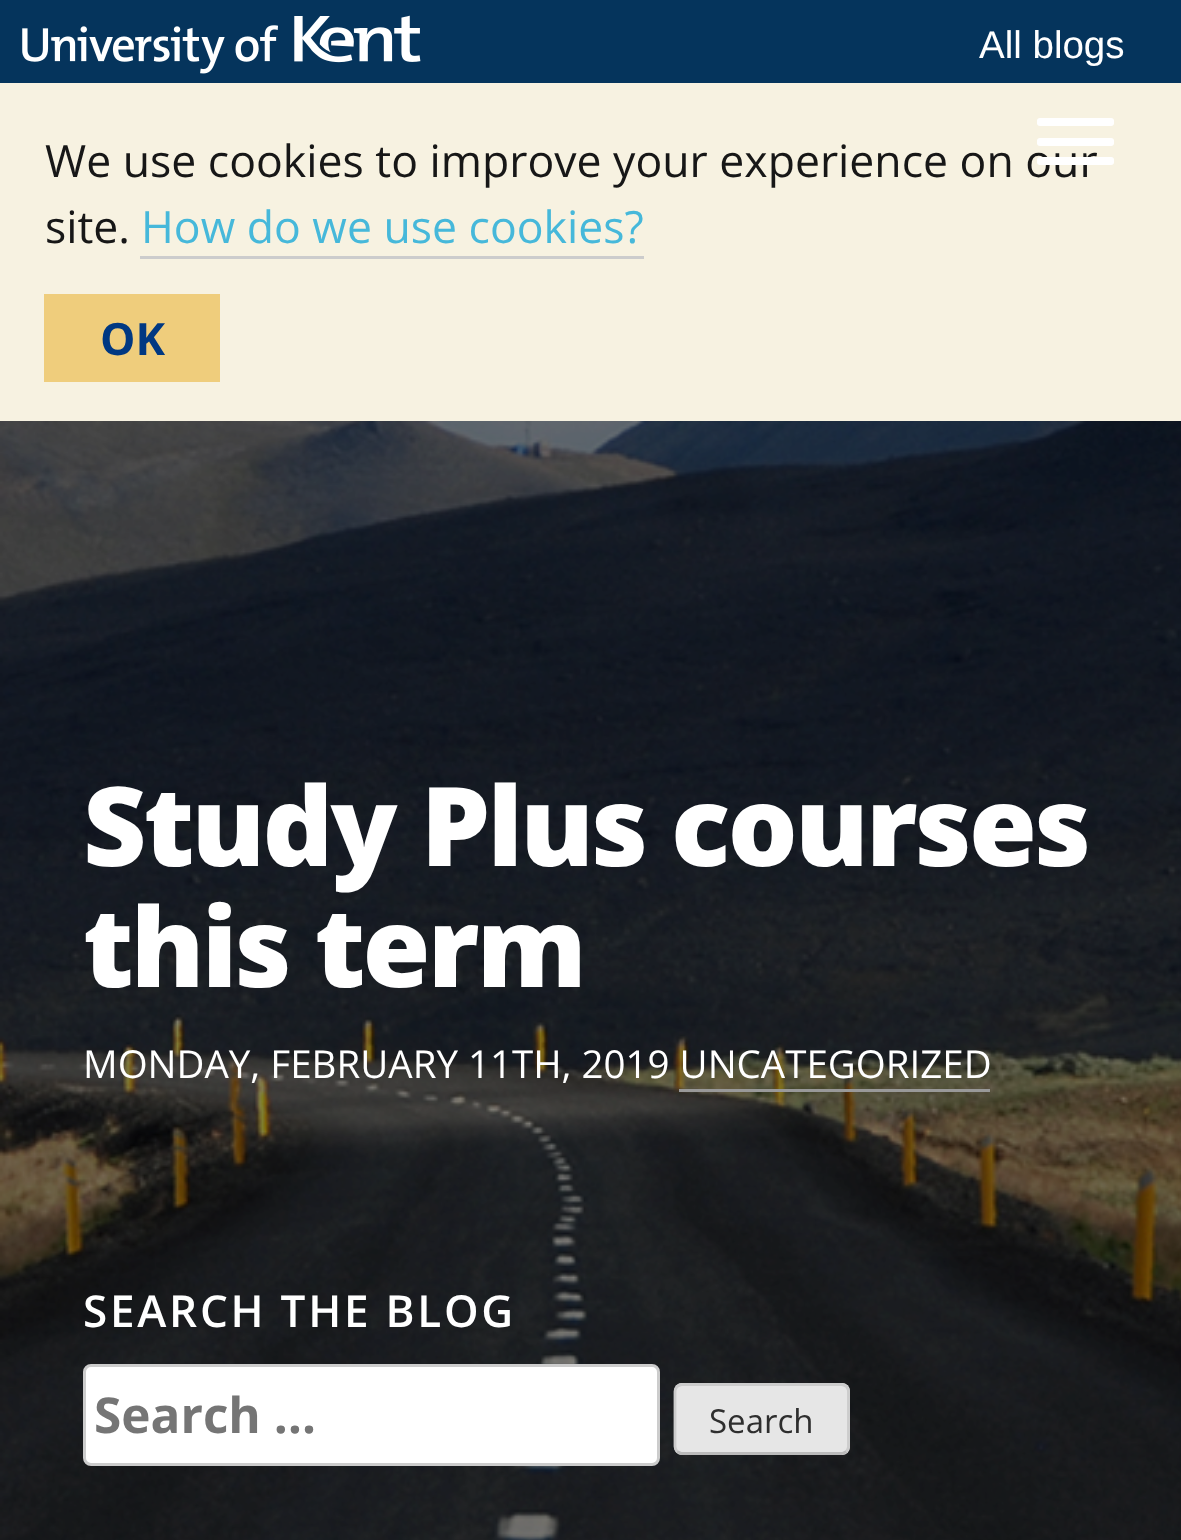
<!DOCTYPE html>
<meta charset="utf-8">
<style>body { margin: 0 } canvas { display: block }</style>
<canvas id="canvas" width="1181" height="1540"></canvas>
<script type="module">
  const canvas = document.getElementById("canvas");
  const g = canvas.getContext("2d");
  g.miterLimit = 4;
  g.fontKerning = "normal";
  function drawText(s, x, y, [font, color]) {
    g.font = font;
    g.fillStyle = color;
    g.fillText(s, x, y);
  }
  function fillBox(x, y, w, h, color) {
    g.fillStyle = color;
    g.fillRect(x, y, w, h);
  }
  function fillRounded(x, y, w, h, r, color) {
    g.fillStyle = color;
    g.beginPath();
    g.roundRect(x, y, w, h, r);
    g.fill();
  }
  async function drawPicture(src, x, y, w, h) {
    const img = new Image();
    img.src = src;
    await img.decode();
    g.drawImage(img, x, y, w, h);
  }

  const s1 = ["38.5px Liberation Sans", "#FFFFFF"];
  const s2 = ["44.55px Open Sans", "#171717"];
  const s3 = ["44.55px Open Sans", "#46B8DA"];
  const s4 = ["bold 44.55px Open Sans", "#003882"];
  const s5 = ["800 110px Open Sans", "#FFFFFF"];
  const s6 = ["38.5px Open Sans", "#FFFFFF"];
  const s7 = ["600 44px Open Sans", "#FFFFFF"];
  const s8 = ["bold 49.5px Open Sans", "#757575"];
  const s9 = ["33px Open Sans", "#2E2E2E"];

  fillBox(0, 0, 1181, 1540, "#FFFFFF");
  fillBox(0, 0, 1181, 83, "#05345C");
  await drawPicture("pic1.png", 22, 15, 399, 59);
  drawText("All blogs", 979, 58, s1);
  fillBox(0, 83, 1181, 338, "#F7F2E1");
  drawText("We use cookies to improve your experience on our", 45, 177, s2);
  drawText("site.", 45, 243, s2);
  drawText("How do we use cookies?", 141, 243, s3);
  fillBox(140, 256, 504, 3, "#CCCCCC");
  fillBox(44, 294, 176, 88, "#EFCD7C");
  drawText("OK", 100, 355, s4);
  await drawPicture("pic2.png", 0, 421, 1181, 1119);
  fillRounded(1037, 118, 77, 8, 3, "#FFFFFF");
  fillRounded(1037, 138, 77, 8, 3, "#FFFFFF");
  fillRounded(1037, 157, 77, 8, 3, "#FFFFFF");
  g.letterSpacing = "-2.75px";
  drawText("Study Plus courses", 83, 866, s5);
  drawText("this term", 83, 987, s5);
  g.letterSpacing = "0px";
  drawText("MONDAY, FEBRUARY 11TH, 2019 UNCATEGORIZED", 83, 1078, s6);
  fillBox(679, 1089, 311, 3, "#999999");
  g.letterSpacing = "2.75px";
  drawText("SEARCH THE BLOG", 83, 1327, s7);
  g.beginPath();
  g.roundRect(84.5, 1365.5, 574, 99, 6.5);
  g.fill();
  g.strokeStyle = "#CCCCCC";
  g.lineWidth = 3;
  g.stroke();
  g.letterSpacing = "0px";
  drawText("Search …", 94, 1433, s8);
  fillRounded(674, 1383, 176, 72, 8, "#E6E6E6");
  g.beginPath();
  g.moveTo(846.5, 1451.5);
  g.bezierCurveTo(845, 1452.5, 844, 1453, 842, 1453.5);
  g.lineTo(681.5, 1453.5);
  g.lineTo(677, 1451.5);
  g.strokeStyle = "#BBBBBB";
  g.lineWidth = 2.8;
  g.stroke();
  g.beginPath();
  g.moveTo(677, 1451.5);
  g.bezierCurveTo(676, 1450, 675, 1448.5, 675, 1446.5);
  g.lineTo(675, 1391.5);
  g.bezierCurveTo(675, 1389.5, 676, 1388, 677, 1386.5);
  g.bezierCurveTo(678.5, 1385.5, 680, 1384.5, 682, 1384.5);
  g.lineTo(841.5, 1384.5);
  g.bezierCurveTo(843.5, 1384.5, 845, 1385.5, 846.5, 1386.5);
  g.bezierCurveTo(847.5, 1388, 848.5, 1389.5, 848.5, 1391.5);
  g.lineTo(848.5, 1446.5);
  g.bezierCurveTo(848.5, 1448.5, 847.5, 1450, 846.5, 1451.5);
  g.strokeStyle = "#CCCCCC";
  g.stroke();
  drawText("Search", 709, 1433, s9);
</script>
